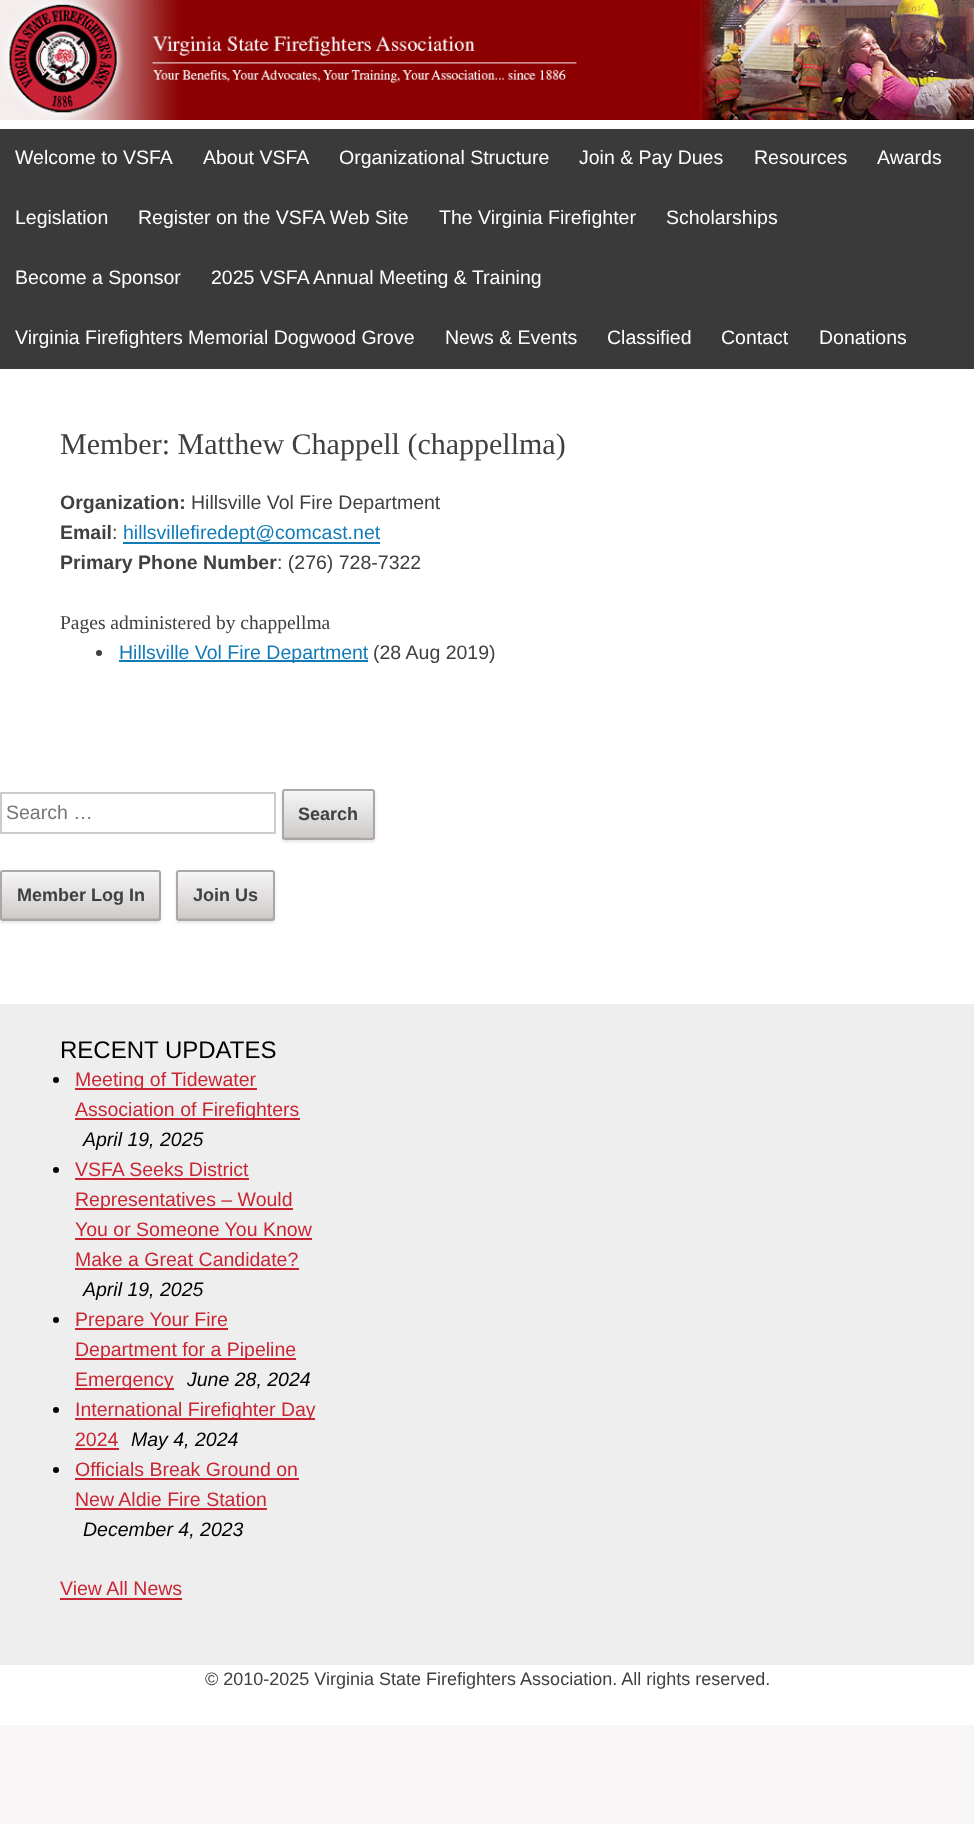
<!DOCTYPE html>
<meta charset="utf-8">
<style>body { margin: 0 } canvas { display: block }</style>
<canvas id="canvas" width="974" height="1824"></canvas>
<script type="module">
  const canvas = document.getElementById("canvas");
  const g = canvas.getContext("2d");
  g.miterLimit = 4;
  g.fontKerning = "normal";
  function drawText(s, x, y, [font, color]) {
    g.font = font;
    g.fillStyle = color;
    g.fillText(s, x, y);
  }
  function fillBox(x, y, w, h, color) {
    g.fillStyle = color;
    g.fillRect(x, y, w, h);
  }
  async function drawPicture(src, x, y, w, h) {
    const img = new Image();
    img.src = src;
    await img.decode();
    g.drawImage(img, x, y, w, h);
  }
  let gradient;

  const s1 = ["19.5px Liberation Sans", "#FFFFFF"];
  const s2 = ["30px Liberation Serif", "#404040"];
  const s3 = ["bold 19.5px Liberation Sans", "#404040"];
  const s4 = ["19.5px Liberation Sans", "#404040"];
  const s5 = ["19.5px Liberation Sans", "#117BB8"];
  const s6 = ["19.5px Liberation Serif", "#404040"];
  const s7 = ["19.5px Liberation Sans", "#757575"];
  const s8 = ["bold 18px Liberation Sans", "#404040"];
  const s9 = ["24px Liberation Sans", "#000000"];
  const s10 = ["19.5px Liberation Sans", "#C92634"];
  const s11 = ["italic 19.5px Liberation Sans", "#000000"];
  const s12 = ["18px Liberation Sans", "#404040"];

  fillBox(0, 0, 974, 1824, "#F8F6F6");
  fillBox(0, 120, 974, 1605, "#FFFFFF");
  await drawPicture("pic1.png", 0, 0, 974, 120);
  fillBox(0, 129, 974, 240, "#3A3A3A");
  drawText("Welcome to VSFA", 15, 164, s1);
  drawText("About VSFA", 203, 164, s1);
  drawText("Organizational Structure", 339, 164, s1);
  drawText("Join & Pay Dues", 579, 164, s1);
  drawText("Resources", 754, 164, s1);
  drawText("Awards", 877, 164, s1);
  drawText("Legislation", 15, 224, s1);
  drawText("Register on the VSFA Web Site", 138, 224, s1);
  drawText("The Virginia Firefighter", 439, 224, s1);
  drawText("Scholarships", 666, 224, s1);
  drawText("Become a Sponsor", 15, 284, s1);
  drawText("2025 VSFA Annual Meeting & Training", 211, 284, s1);
  drawText("Virginia Firefighters Memorial Dogwood Grove", 15, 344, s1);
  drawText("News & Events", 445, 344, s1);
  drawText("Classified", 607, 344, s1);
  drawText("Contact", 721, 344, s1);
  drawText("Donations", 819, 344, s1);
  drawText("Member: Matthew Chappell (chappellma)", 60, 454, s2);
  drawText("Organization:", 60, 509, s3);
  drawText("Hillsville Vol Fire Department", 191, 509, s4);
  drawText("Email", 60, 539, s3);
  drawText(":", 112, 539, s4);
  fillBox(123, 542, 257, 2, "#117BB8");
  drawText("hillsvillefiredept@comcast.net", 123, 539, s5);
  drawText("Primary Phone Number", 60, 569, s3);
  drawText(": (276) 728-7322", 277, 569, s4);
  drawText("Pages administered by chappellma", 60, 629, s6);
  g.beginPath();
  g.arc(99, 653, 3, 0, Math.PI * 2);
  g.fill();
  fillBox(119, 660, 249, 2, "#117BB8");
  drawText("Hillsville Vol Fire Department", 119, 659, s5);
  drawText("(28 Aug 2019)", 373, 659, s4);
  g.strokeStyle = "#CCCCCC";
  g.lineWidth = 2;
  g.strokeRect(1, 793, 274, 40);
  drawText("Search …", 6, 819, s7);
  g.fillStyle = "rgba(0, 0, 0, 0.1)";
  g.filter = "blur(1.5px)";
  g.beginPath();
  g.roundRect(282, 791, 93, 51, 3);
  g.fill();
  g.filter = "none";
  g.save();
  g.beginPath();
  g.roundRect(282, 789, 93, 51, 3);
  g.clip();
  gradient = g.createLinearGradient(329, 791, 329, 839);
  gradient.addColorStop(0, "#F6F5F5");
  gradient.addColorStop(1, "#CDC9C9");
  g.fillStyle = gradient;
  g.fillRect(282, 791, 93, 48);
  g.restore();
  g.fillStyle = "rgba(255, 255, 255, 0.3)";
  g.beginPath();
  g.moveTo(285, 792);
  g.lineTo(373, 792);
  g.lineTo(374, 831);
  g.lineTo(374, 792);
  g.bezierCurveTo(374, 792, 373, 791, 372, 791);
  g.lineTo(286, 791);
  g.bezierCurveTo(285, 791, 284, 792, 284, 792);
  g.closePath();
  g.fill();
  g.fillStyle = "rgba(0, 0, 0, 0.07)";
  g.beginPath();
  g.moveTo(284, 836);
  g.lineTo(284, 839);
  g.bezierCurveTo(288, 842, 295, 839, 300, 839);
  g.lineTo(373, 839);
  g.bezierCurveTo(375, 838, 374, 836, 374, 835);
  g.bezierCurveTo(373, 840, 362, 837, 360, 837);
  g.lineTo(286, 837);
  g.closePath();
  g.moveTo(374, 828);
  g.lineTo(374, 792);
  g.lineTo(373, 791);
  g.closePath();
  g.fill("evenodd");
  g.beginPath();
  g.roundRect(283, 790, 91, 49, 2);
  g.strokeStyle = "#ACA6A6";
  g.stroke();
  drawText("Search", 298, 820, s8);
  g.fillStyle = "rgba(0, 0, 0, 0.1)";
  g.filter = "blur(1.5px)";
  g.beginPath();
  g.roundRect(0, 872, 161, 51, 3);
  g.fill();
  g.filter = "none";
  g.save();
  g.beginPath();
  g.roundRect(0, 870, 161, 51, 3);
  g.clip();
  gradient = g.createLinearGradient(80, 872, 80, 920);
  gradient.addColorStop(0, "#F6F5F5");
  gradient.addColorStop(1, "#CDC9C9");
  g.fillStyle = gradient;
  g.fillRect(0, 872, 161, 48);
  g.restore();
  g.fillStyle = "#F9F8F8";
  g.beginPath();
  g.moveTo(3, 873);
  g.lineTo(158, 873);
  g.lineTo(159, 874);
  g.lineTo(159, 873);
  g.lineTo(158, 872);
  g.lineTo(4, 872);
  g.bezierCurveTo(2, 872, 2, 873, 2, 874);
  g.closePath();
  g.fill();
  g.fillStyle = "#BEBABA";
  g.beginPath();
  g.moveTo(2, 916);
  g.bezierCurveTo(2, 917, 1, 920, 4, 920);
  g.lineTo(158, 920);
  g.bezierCurveTo(160, 919, 159, 917, 159, 916);
  g.lineTo(158, 918);
  g.lineTo(2, 918);
  g.closePath();
  g.fill();
  g.beginPath();
  g.roundRect(1, 871, 159, 49, 2);
  g.stroke();
  drawText("Member Log In", 17, 901, s8);
  g.fillStyle = "rgba(0, 0, 0, 0.1)";
  g.filter = "blur(1.5px)";
  g.beginPath();
  g.roundRect(176, 872, 99, 51, 3);
  g.fill();
  g.filter = "none";
  g.save();
  g.beginPath();
  g.roundRect(176, 870, 99, 51, 3);
  g.clip();
  gradient = g.createLinearGradient(225, 872, 225, 920);
  gradient.addColorStop(0, "#F6F5F5");
  gradient.addColorStop(1, "#CDC9C9");
  g.fillStyle = gradient;
  g.fillRect(176, 872, 99, 48);
  g.restore();
  g.fillStyle = "#F9F8F8";
  g.beginPath();
  g.moveTo(178, 873);
  g.lineTo(272, 873);
  g.lineTo(273, 874);
  g.bezierCurveTo(273, 873, 273, 872, 272, 872);
  g.lineTo(178, 872);
  g.bezierCurveTo(177, 872, 177, 873, 177, 874);
  g.closePath();
  g.fill();
  g.fillStyle = "#BEBABA";
  g.beginPath();
  g.moveTo(177, 916);
  g.lineTo(177, 918);
  g.bezierCurveTo(177, 919, 178, 920, 178, 920);
  g.lineTo(272, 920);
  g.bezierCurveTo(272, 920, 273, 919, 273, 918);
  g.lineTo(273, 916);
  g.lineTo(272, 918);
  g.lineTo(178, 918);
  g.closePath();
  g.fill();
  g.beginPath();
  g.roundRect(177, 871, 97, 49, 2);
  g.stroke();
  drawText("Join Us", 193, 901, s8);
  fillBox(0, 1004, 974, 661, "#EEEEEE");
  drawText("RECENT UPDATES", 60, 1058, s9);
  g.beginPath();
  g.arc(56, 1080, 3, 0, Math.PI * 2);
  g.fill();
  fillBox(75, 1088, 182, 2, "#C92634");
  drawText("Meeting of Tidewater", 75, 1086, s10);
  fillBox(75, 1118, 225, 2, "#C92634");
  drawText("Association of Firefighters", 75, 1116, s10);
  drawText("April 19, 2025", 83, 1146, s11);
  g.beginPath();
  g.arc(56, 1170, 3, 0, Math.PI * 2);
  g.fill();
  drawText("VSFA Seeks District", 75, 1176, s10);
  fillBox(75, 1178, 174, 2, "#C92634");
  fillBox(75, 1208, 218, 2, "#C92634");
  drawText("Representatives – Would", 75, 1206, s10);
  drawText("You or Someone You Know", 75, 1236, s10);
  fillBox(75, 1238, 237, 2, "#C92634");
  drawText("Make a Great Candidate?", 75, 1266, s10);
  fillBox(75, 1268, 224, 2, "#C92634");
  drawText("April 19, 2025", 83, 1296, s11);
  g.beginPath();
  g.arc(56, 1320, 3, 0, Math.PI * 2);
  g.fill();
  fillBox(75, 1328, 153, 2, "#C92634");
  drawText("Prepare Your Fire", 75, 1326, s10);
  fillBox(75, 1358, 221, 2, "#C92634");
  drawText("Department for a Pipeline", 75, 1356, s10);
  fillBox(75, 1388, 99, 2, "#C92634");
  drawText("Emergency", 75, 1386, s10);
  drawText("June 28, 2024", 187, 1386, s11);
  g.beginPath();
  g.arc(56, 1410, 3, 0, Math.PI * 2);
  g.fill();
  fillBox(75, 1418, 240, 2, "#C92634");
  drawText("International Firefighter Day", 75, 1416, s10);
  drawText("2024", 75, 1446, s10);
  fillBox(75, 1448, 44, 2, "#C92634");
  drawText("May 4, 2024", 131, 1446, s11);
  g.beginPath();
  g.arc(56, 1470, 3, 0, Math.PI * 2);
  g.fill();
  drawText("Officials Break Ground on", 75, 1476, s10);
  fillBox(75, 1478, 224, 2, "#C92634");
  drawText("New Aldie Fire Station", 75, 1506, s10);
  fillBox(75, 1508, 192, 2, "#C92634");
  drawText("December 4, 2023", 83, 1536, s11);
  drawText("View All News", 60, 1595, s10);
  fillBox(60, 1598, 122, 2, "#C92634");
  drawText("© 2010-2025 Virginia State Firefighters Association. All rights reserved.", 205, 1685, s12);
</script>
